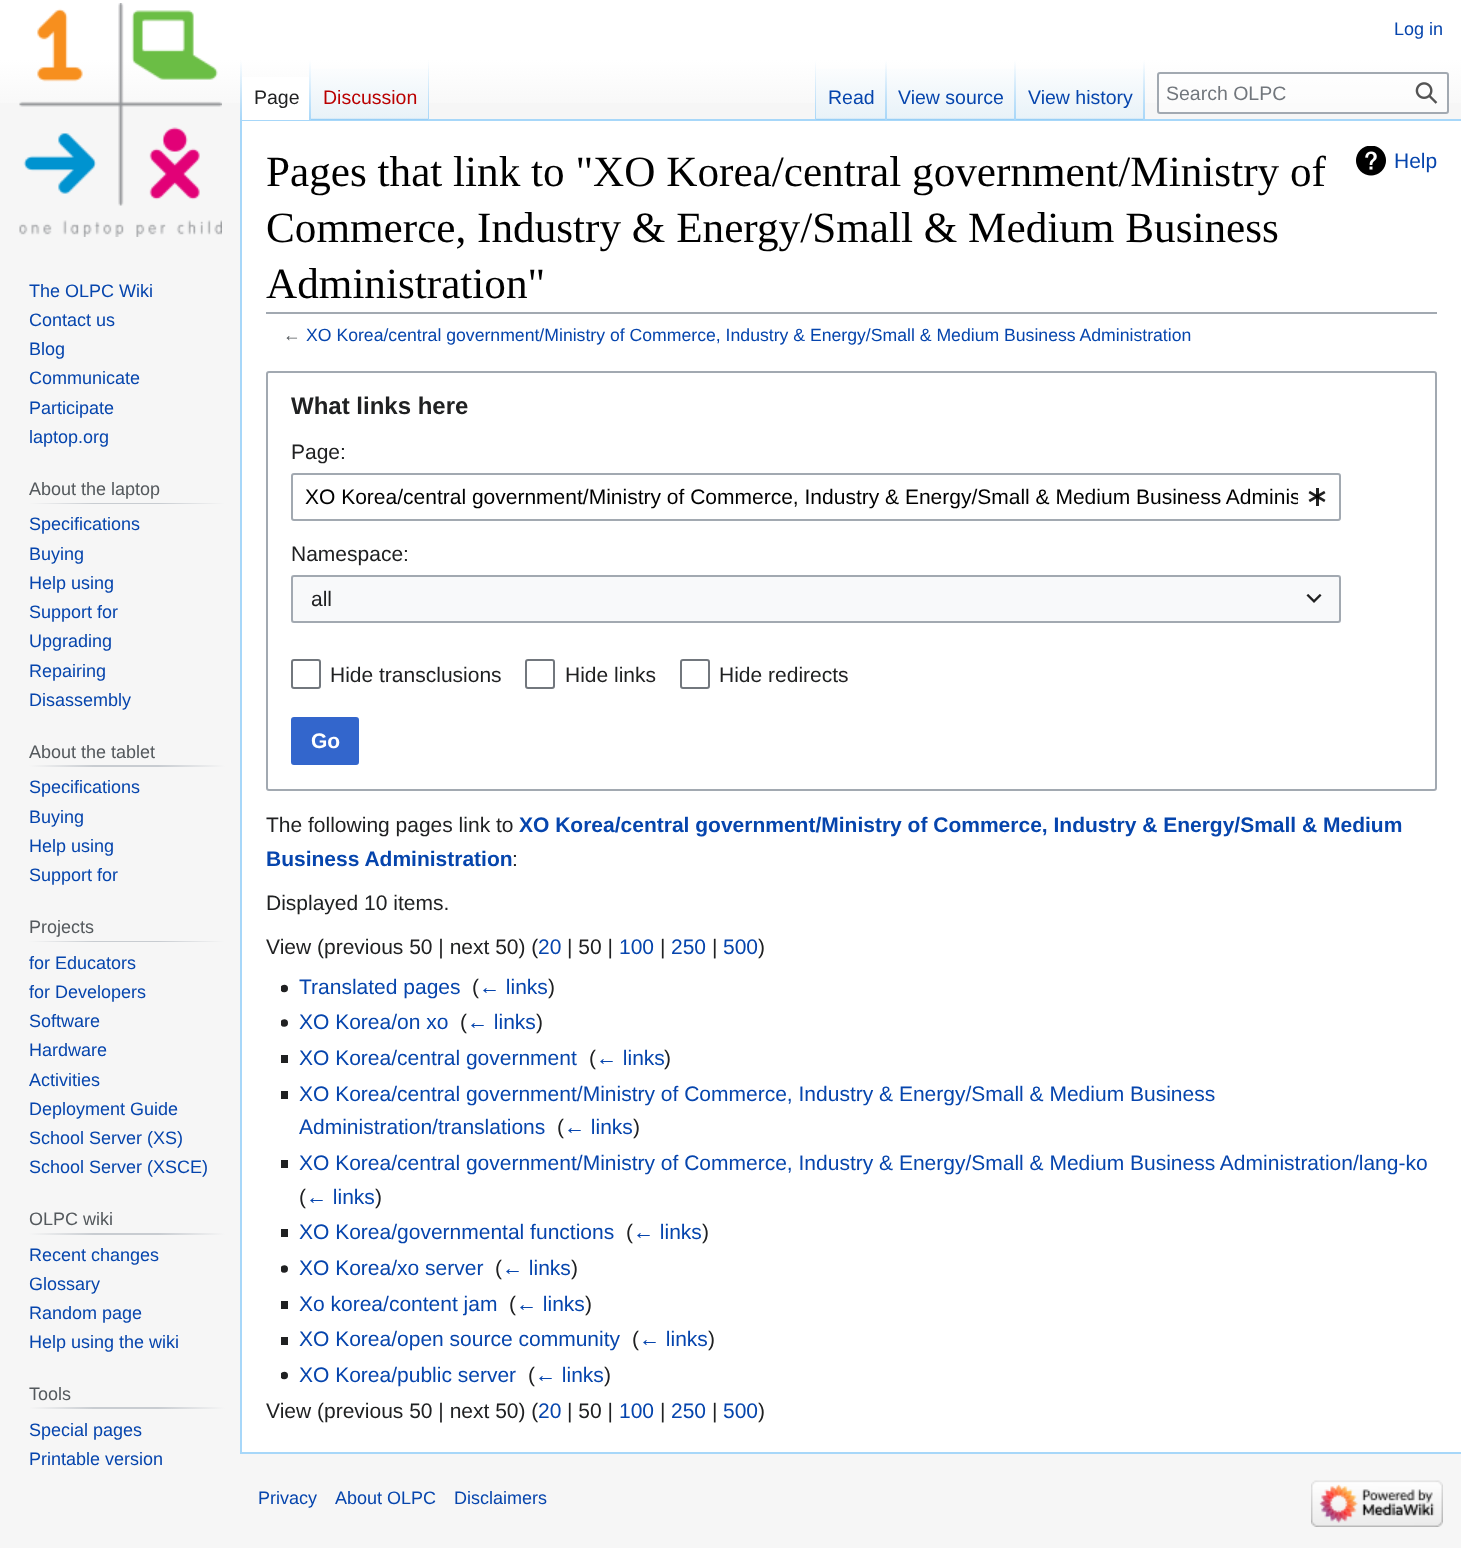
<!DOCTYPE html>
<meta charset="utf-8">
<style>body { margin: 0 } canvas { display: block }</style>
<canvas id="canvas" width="1461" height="1548"></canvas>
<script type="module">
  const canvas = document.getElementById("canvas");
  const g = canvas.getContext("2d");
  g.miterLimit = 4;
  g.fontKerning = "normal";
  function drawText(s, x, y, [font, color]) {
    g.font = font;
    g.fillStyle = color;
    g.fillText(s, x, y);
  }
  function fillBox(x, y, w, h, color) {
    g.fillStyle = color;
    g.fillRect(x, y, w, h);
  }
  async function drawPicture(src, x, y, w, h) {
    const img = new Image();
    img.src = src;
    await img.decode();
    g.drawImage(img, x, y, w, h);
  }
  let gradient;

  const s1 = ["18px Liberation Sans", "#0645AD"];
  const s2 = ["19.5px Liberation Sans", "#202122"];
  const s3 = ["19.5px Liberation Sans", "#BA0000"];
  const s4 = ["19.5px Liberation Sans", "#0645AD"];
  const s5 = ["19.5px Liberation Sans", "#72777D"];
  const s6 = ["18px Liberation Sans", "#54595D"];
  const s7 = ["43.2px Liberation Serif", "#000000"];
  const s8 = ["21px Liberation Sans", "#0645AD"];
  const s9 = ["17.65px Liberation Sans", "#54595D"];
  const s10 = ["17.65px Liberation Sans", "#0645AD"];
  const s11 = ["bold 24px Liberation Sans", "#202122"];
  const s12 = ["21px Liberation Sans", "#202122"];
  const s13 = ["21px Liberation Sans", "#000000"];
  const s14 = ["bold 21px Liberation Sans", "#FFFFFF"];
  const s15 = ["bold 21px Liberation Sans", "#0645AD"];

  fillBox(0, 0, 1461, 1548, "#F6F6F6");
  gradient = g.createLinearGradient(731, 0, 731, 120);
  gradient.addColorStop(0.5, "#FFFFFF");
  gradient.addColorStop(1, "#F6F6F6");
  g.fillStyle = gradient;
  g.fillRect(0, 0, 1461, 103);
  drawText("Log in", 1394, 35, s1);
  fillBox(240, 119, 1221, 2, "#A7D7F9");
  fillBox(240, 1452, 1221, 2, "#A7D7F9");
  fillBox(240, 119, 2, 1335, "#A7D7F9");
  gradient = g.createLinearGradient(241, 60, 241, 120);
  gradient.addColorStop(0, "rgba(167, 215, 249, 0)");
  gradient.addColorStop(1, "#A7D7F9");
  g.fillStyle = gradient;
  g.fillRect(240, 60, 2, 60);
  fillBox(242, 77, 67, 43, "#FFFFFF");
  gradient = g.createLinearGradient(310, 60, 310, 120);
  gradient.addColorStop(0, "#FFFFFF");
  gradient.addColorStop(1, "#A7D7F9");
  g.fillStyle = gradient;
  g.fillRect(309, 60, 2, 60);
  drawText("Page", 254, 104, s2);
  gradient = g.createLinearGradient(370, 120, 370, 60);
  gradient.addColorStop(0, "#77C1F6");
  gradient.addColorStop(0.03, "#E8F2F8");
  gradient.addColorStop(1, "#FFFFFF");
  g.fillStyle = gradient;
  g.fillRect(311, 69, 118, 51);
  gradient = g.createLinearGradient(428, 60, 428, 120);
  gradient.addColorStop(0, "rgba(167, 215, 249, 0)");
  gradient.addColorStop(1, "#A7D7F9");
  g.fillStyle = gradient;
  g.fillRect(428, 60, 1, 60);
  drawText("Discussion", 323, 104, s3);
  gradient = g.createLinearGradient(815, 60, 815, 120);
  gradient.addColorStop(0, "rgba(167, 215, 249, 0)");
  gradient.addColorStop(1, "#A7D7F9");
  g.fillStyle = gradient;
  g.fillRect(815, 60, 1, 60);
  gradient = g.createLinearGradient(851, 120, 851, 60);
  gradient.addColorStop(0, "#77C1F6");
  gradient.addColorStop(0.03, "#E8F2F8");
  gradient.addColorStop(1, "#FFFFFF");
  g.fillStyle = gradient;
  g.fillRect(816, 69, 71, 51);
  gradient = g.createLinearGradient(886, 60, 886, 120);
  gradient.addColorStop(0, "rgba(167, 215, 249, 0)");
  gradient.addColorStop(1, "#A7D7F9");
  g.fillStyle = gradient;
  g.fillRect(885, 60, 2, 60);
  drawText("Read", 828, 104, s4);
  gradient = g.createLinearGradient(951, 120, 951, 60);
  gradient.addColorStop(0, "#77C1F6");
  gradient.addColorStop(0.03, "#E8F2F8");
  gradient.addColorStop(1, "#FFFFFF");
  g.fillStyle = gradient;
  g.fillRect(887, 69, 129, 51);
  gradient = g.createLinearGradient(1015, 60, 1015, 120);
  gradient.addColorStop(0, "rgba(167, 215, 249, 0)");
  gradient.addColorStop(1, "#A7D7F9");
  g.fillStyle = gradient;
  g.fillRect(1014, 60, 2, 60);
  drawText("View source", 898, 104, s4);
  gradient = g.createLinearGradient(1080, 120, 1080, 60);
  gradient.addColorStop(0, "#77C1F6");
  gradient.addColorStop(0.03, "#E8F2F8");
  gradient.addColorStop(1, "#FFFFFF");
  g.fillStyle = gradient;
  g.fillRect(1016, 69, 129, 51);
  gradient = g.createLinearGradient(1144, 60, 1144, 120);
  gradient.addColorStop(0, "rgba(167, 215, 249, 0)");
  gradient.addColorStop(1, "#A7D7F9");
  g.fillStyle = gradient;
  g.fillRect(1143, 60, 2, 60);
  drawText("View history", 1028, 104, s4);
  g.fillStyle = "rgba(255, 255, 255, 0.5)";
  g.beginPath();
  g.roundRect(1158, 73, 290, 40, 2);
  g.fill();
  g.strokeStyle = "#A2A9B1";
  g.lineWidth = 2;
  g.stroke();
  drawText("Search OLPC", 1166, 100, s5);
  await drawPicture("pic1.png", 1415, 82, 23, 22);
  await drawPicture("pic2.png", 19, 3, 203, 234);
  drawText("The OLPC Wiki", 29, 297, s1);
  drawText("Contact us", 29, 326, s1);
  drawText("Blog", 29, 355, s1);
  drawText("Communicate", 29, 384, s1);
  drawText("Participate", 29, 414, s1);
  drawText("laptop.org", 29, 443, s1);
  gradient = g.createLinearGradient(29, 503, 225, 503);
  gradient.addColorStop(0, "#F6F6F6");
  gradient.addColorStop(0.33, "#C8CCD1");
  gradient.addColorStop(0.66, "#C8CCD1");
  gradient.addColorStop(1, "#F6F6F6");
  g.fillStyle = gradient;
  g.fillRect(29, 503, 196, 1);
  drawText("About the laptop", 29, 495, s6);
  drawText("Specifications", 29, 530, s1);
  drawText("Buying", 29, 560, s1);
  drawText("Help using", 29, 589, s1);
  drawText("Support for", 29, 618, s1);
  drawText("Upgrading", 29, 647, s1);
  drawText("Repairing", 29, 677, s1);
  drawText("Disassembly", 29, 706, s1);
  gradient = g.createLinearGradient(29, 766, 225, 766);
  gradient.addColorStop(0, "#F6F6F6");
  gradient.addColorStop(0.33, "#C8CCD1");
  gradient.addColorStop(0.66, "#C8CCD1");
  gradient.addColorStop(1, "#F6F6F6");
  g.fillStyle = gradient;
  g.fillRect(29, 765, 196, 2);
  drawText("About the tablet", 29, 758, s6);
  drawText("Specifications", 29, 793, s1);
  drawText("Buying", 29, 823, s1);
  drawText("Help using", 29, 852, s1);
  drawText("Support for", 29, 881, s1);
  gradient = g.createLinearGradient(29, 941, 225, 941);
  gradient.addColorStop(0, "#F6F6F6");
  gradient.addColorStop(0.33, "#C8CCD1");
  gradient.addColorStop(0.66, "#C8CCD1");
  gradient.addColorStop(1, "#F6F6F6");
  g.fillStyle = gradient;
  g.fillRect(29, 941, 196, 1);
  drawText("Projects", 29, 933, s6);
  drawText("for Educators", 29, 969, s1);
  drawText("for Developers", 29, 998, s1);
  drawText("Software", 29, 1027, s1);
  drawText("Hardware", 29, 1056, s1);
  drawText("Activities", 29, 1086, s1);
  drawText("Deployment Guide", 29, 1115, s1);
  drawText("School Server (XS)", 29, 1144, s1);
  drawText("School Server (XSCE)", 29, 1173, s1);
  gradient = g.createLinearGradient(29, 1234, 225, 1234);
  gradient.addColorStop(0, "#F6F6F6");
  gradient.addColorStop(0.33, "#C8CCD1");
  gradient.addColorStop(0.66, "#C8CCD1");
  gradient.addColorStop(1, "#F6F6F6");
  g.fillStyle = gradient;
  g.fillRect(29, 1233, 196, 2);
  drawText("OLPC wiki", 29, 1225, s6);
  drawText("Recent changes", 29, 1261, s1);
  drawText("Glossary", 29, 1290, s1);
  drawText("Random page", 29, 1319, s1);
  drawText("Help using the wiki", 29, 1348, s1);
  gradient = g.createLinearGradient(29, 1408, 225, 1408);
  gradient.addColorStop(0, "#F6F6F6");
  gradient.addColorStop(0.33, "#C8CCD1");
  gradient.addColorStop(0.66, "#C8CCD1");
  gradient.addColorStop(1, "#F6F6F6");
  g.fillStyle = gradient;
  g.fillRect(29, 1407, 196, 2);
  drawText("Tools", 29, 1400, s6);
  drawText("Special pages", 29, 1436, s1);
  drawText("Printable version", 29, 1465, s1);
  fillBox(242, 121, 1219, 1331, "#FFFFFF");
  fillBox(266, 312, 1171, 2, "#A2A9B1");
  drawText("Pages that link to \"XO Korea/central government/Ministry of", 266, 186, s7);
  drawText("Commerce, Industry & Energy/Small & Medium Business", 266, 242, s7);
  drawText("Administration\"", 266, 298, s7);
  await drawPicture("pic3.png", 1356, 146, 30, 30);
  drawText("Help", 1394, 168, s8);
  drawText("←", 283, 341, s9);
  drawText("XO Korea/central government/Ministry of Commerce, Industry & Energy/Small & Medium Business Administration", 306, 341, s10);
  g.beginPath();
  g.roundRect(267, 372, 1169, 418, 2);
  g.stroke();
  drawText("What links here", 291, 414, s11);
  drawText("Page:", 291, 459, s12);
  g.beginPath();
  g.roundRect(292, 474, 1048, 46, 2);
  g.stroke();
  g.save();
  g.beginPath();
  g.rect(305, 485, 993, 24);
  g.clip();
  drawText("XO Korea/central government/Ministry of Commerce, Industry & Energy/Small & Medium Business Adminis", 305, 504, s13);
  g.restore();
  await drawPicture("pic4.png", 1308, 488, 18, 18);
  drawText("Namespace:", 291, 561, s12);
  fillBox(291, 575, 1050, 48, "#F8F9FA");
  g.beginPath();
  g.roundRect(292, 576, 1048, 46, 2);
  g.stroke();
  drawText("all", 311, 606, s12);
  await drawPicture("pic5.png", 1306, 594, 16, 9);
  g.beginPath();
  g.roundRect(292, 660, 28, 28, 2);
  g.strokeStyle = "#72777D";
  g.stroke();
  drawText("Hide transclusions", 330, 682, s12);
  g.beginPath();
  g.roundRect(526, 660, 28, 28, 2);
  g.stroke();
  drawText("Hide links", 565, 682, s12);
  g.beginPath();
  g.roundRect(681, 660, 28, 28, 2);
  g.stroke();
  drawText("Hide redirects", 719, 682, s12);
  g.fillStyle = "#3366CC";
  g.beginPath();
  g.roundRect(292, 718, 66, 46, 2);
  g.fill();
  g.strokeStyle = "#3366CC";
  g.stroke();
  drawText("Go", 311, 748, s14);
  drawText("The following pages link to", 266, 832, s12);
  drawText("XO Korea/central government/Ministry of Commerce, Industry & Energy/Small & Medium", 519, 832, s15);
  drawText("Business Administration", 266, 866, s15);
  drawText(":", 512, 866, s12);
  drawText("Displayed 10 items.", 266, 910, s12);
  drawText("View (previous 50 | next 50) (", 266, 954, s12);
  drawText("20", 538, 954, s8);
  drawText("| 50 |", 567, 954, s12);
  drawText("100", 619, 954, s8);
  drawText("|", 660, 954, s12);
  drawText("250", 671, 954, s8);
  drawText("|", 712, 954, s12);
  drawText("500", 723, 954, s8);
  drawText(")", 758, 954, s12);
  await drawPicture("pic6.png", 281, 984, 7, 9);
  drawText("Translated pages", 299, 994, s8);
  drawText("(", 472, 994, s12);
  drawText("← links", 479, 994, s8);
  drawText(")", 548, 994, s12);
  await drawPicture("pic7.png", 281, 1019, 7, 8);
  drawText("XO Korea/on xo", 299, 1029, s8);
  drawText("(", 460, 1029, s12);
  drawText("← links", 467, 1029, s8);
  drawText(")", 536, 1029, s12);
  fillBox(281, 1055, 7, 8, "#202122");
  drawText("XO Korea/central government", 299, 1065, s8);
  drawText("(", 589, 1065, s12);
  drawText("← links", 596, 1065, s8);
  drawText(")", 664, 1065, s12);
  fillBox(281, 1091, 7, 8, "#202122");
  drawText("XO Korea/central government/Ministry of Commerce, Industry & Energy/Small & Medium Business", 299, 1101, s8);
  drawText("Administration/translations", 299, 1134, s8);
  drawText("(", 557, 1134, s12);
  drawText("← links", 564, 1134, s8);
  drawText(")", 633, 1134, s12);
  fillBox(281, 1160, 7, 8, "#202122");
  drawText("XO Korea/central government/Ministry of Commerce, Industry & Energy/Small & Medium Business Administration/lang-ko", 299, 1170, s8);
  drawText("(", 299, 1204, s12);
  drawText("← links", 306, 1204, s8);
  drawText(")", 375, 1204, s12);
  fillBox(281, 1229, 7, 8, "#202122");
  drawText("XO Korea/governmental functions", 299, 1239, s8);
  drawText("(", 626, 1239, s12);
  drawText("← links", 633, 1239, s8);
  drawText(")", 702, 1239, s12);
  await drawPicture("pic8.png", 281, 1265, 7, 8);
  drawText("XO Korea/xo server", 299, 1275, s8);
  drawText("(", 495, 1275, s12);
  drawText("← links", 502, 1275, s8);
  drawText(")", 571, 1275, s12);
  fillBox(281, 1301, 7, 8, "#202122");
  drawText("Xo korea/content jam", 299, 1311, s8);
  drawText("(", 509, 1311, s12);
  drawText("← links", 516, 1311, s8);
  drawText(")", 585, 1311, s12);
  fillBox(281, 1337, 7, 8, "#202122");
  drawText("XO Korea/open source community", 299, 1346, s8);
  drawText("(", 632, 1346, s12);
  drawText("← links", 639, 1346, s8);
  drawText(")", 708, 1346, s12);
  await drawPicture("pic6.png", 281, 1371, 7, 9);
  drawText("XO Korea/public server", 299, 1382, s8);
  drawText("(", 528, 1382, s12);
  drawText("← links", 535, 1382, s8);
  drawText(")", 604, 1382, s12);
  drawText("View (previous 50 | next 50) (", 266, 1418, s12);
  drawText("20", 538, 1418, s8);
  drawText("| 50 |", 567, 1418, s12);
  drawText("100", 619, 1418, s8);
  drawText("|", 660, 1418, s12);
  drawText("250", 671, 1418, s8);
  drawText("|", 712, 1418, s12);
  drawText("500", 723, 1418, s8);
  drawText(")", 758, 1418, s12);
  drawText("Privacy", 258, 1504, s1);
  drawText("About OLPC", 335, 1504, s1);
  drawText("Disclaimers", 454, 1504, s1);
  await drawPicture("pic9.png", 1311, 1480, 132, 47);
</script>
